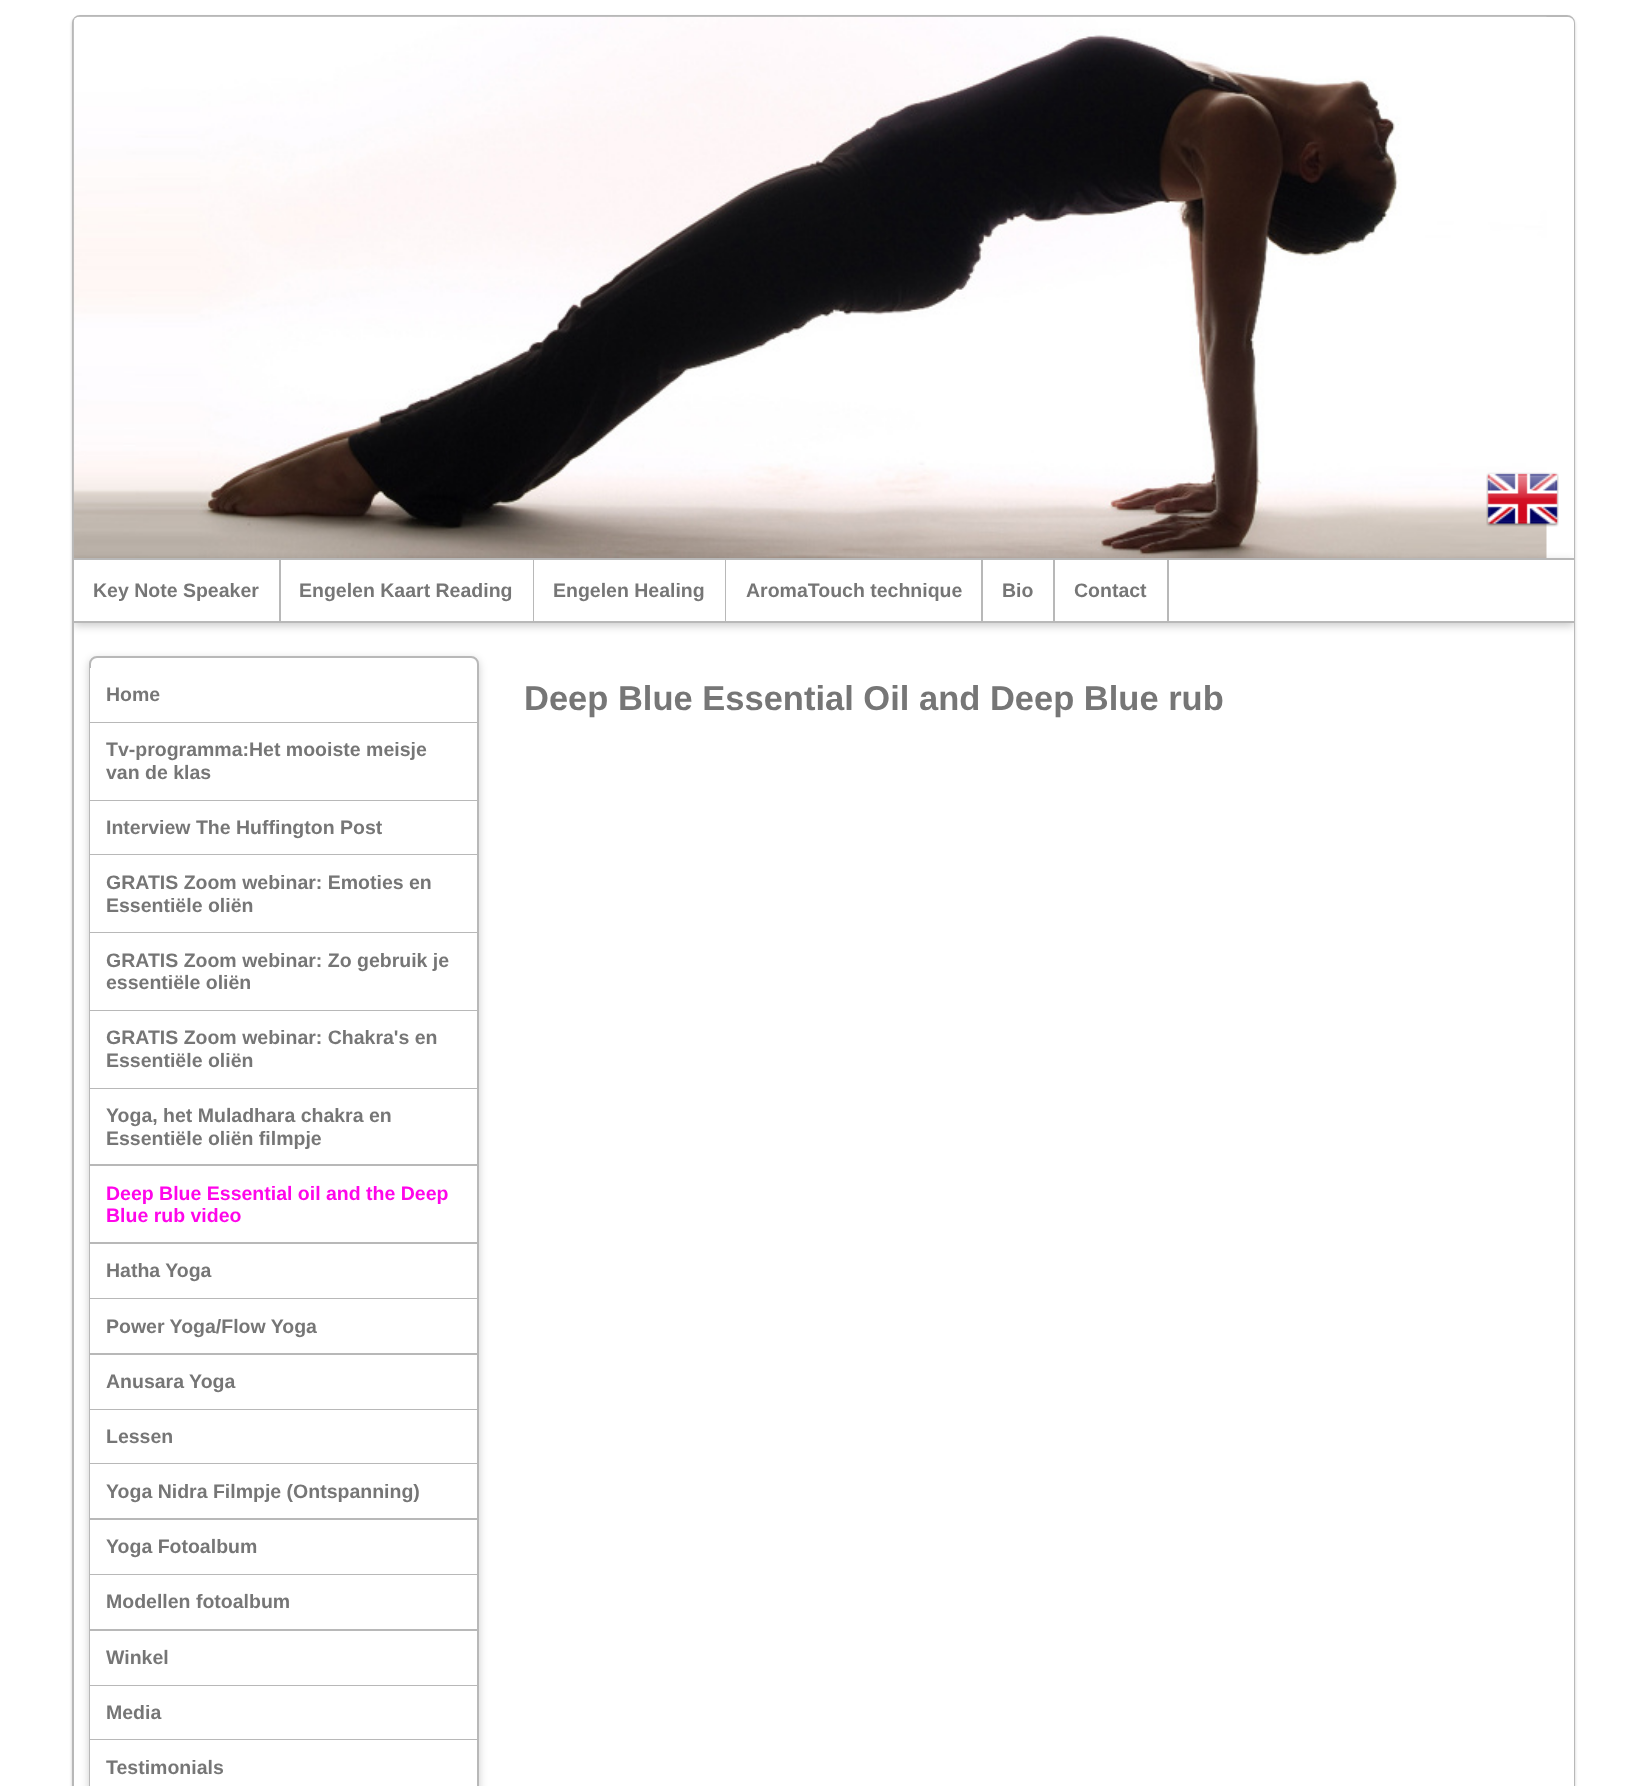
<!DOCTYPE html>
<meta charset="utf-8">
<style>body { margin: 0 } canvas { display: block }</style>
<canvas id="canvas" width="1646" height="1786"></canvas>
<script type="module">
  const canvas = document.getElementById("canvas");
  const g = canvas.getContext("2d");
  g.miterLimit = 4;
  g.fontKerning = "normal";
  function drawText(s, x, y, [font, color]) {
    g.font = font;
    g.fillStyle = color;
    g.fillText(s, x, y);
  }
  function fillBox(x, y, w, h, color) {
    g.fillStyle = color;
    g.fillRect(x, y, w, h);
  }
  async function drawPicture(src, x, y, w, h) {
    const img = new Image();
    img.src = src;
    await img.decode();
    g.drawImage(img, x, y, w, h);
  }

  const s1 = ["bold 19.5px Liberation Sans", "#767676"];
  const s2 = ["bold 19.5px Liberation Sans", "#FF05EA"];
  const s3 = ["bold 34.5px Liberation Sans", "#767676"];

  fillBox(0, 0, 1646, 1786, "#FFFFFF");
  g.fillStyle = "rgba(0, 0, 0, 0.2)";
  g.filter = "blur(1.5px)";
  g.beginPath();
  g.roundRect(72, 17, 1503, 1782, 8);
  g.fill();
  g.filter = "none";
  g.beginPath();
  g.roundRect(73, 16, 1501, 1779, 7);
  g.strokeStyle = "#B8B8B8";
  g.lineWidth = 2;
  g.stroke();
  g.fillStyle = "#FFFFFF";
  g.beginPath();
  g.roundRect(74, 17, 1500, 541, [6, 6, 0, 0]);
  g.fill();
  await drawPicture("pic1.png", 73, 16, 1474, 542);
  await drawPicture("pic2.png", 1486, 472, 73, 55);
  fillBox(74, 623, 1500, 1163, "#FFFFFF");
  g.save();
  g.beginPath();
  g.roundRect(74, 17, 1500, 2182, 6);
  g.clip();
  g.fillStyle = "rgba(0, 0, 0, 0.2)";
  g.filter = "blur(4px)";
  g.beginPath();
  g.rect(74, 561, 1500, 65);
  g.fill();
  g.filter = "none";
  g.restore();
  fillBox(74, 560, 1500, 61, "#FFFFFF");
  fillBox(74, 558, 1500, 2, "#B8B8B8");
  fillBox(74, 621, 1500, 2, "#B8B8B8");
  fillBox(279, 560, 2, 61, "#B8B8B8");
  drawText("Key Note Speaker", 93, 597, s1);
  fillBox(533, 560, 1, 61, "#B8B8B8");
  drawText("Engelen Kaart Reading", 299, 597, s1);
  fillBox(725, 560, 1, 61, "#B8B8B8");
  drawText("Engelen Healing", 553, 597, s1);
  fillBox(981, 560, 2, 61, "#B8B8B8");
  drawText("AromaTouch technique", 746, 597, s1);
  fillBox(1053, 560, 2, 61, "#B8B8B8");
  drawText("Bio", 1002, 597, s1);
  fillBox(1167, 560, 2, 61, "#B8B8B8");
  drawText("Contact", 1074, 597, s1);
  g.fillStyle = "rgba(0, 0, 0, 0.2)";
  g.filter = "blur(4px)";
  g.beginPath();
  g.roundRect(89, 659, 390, 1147, 8);
  g.fill();
  g.filter = "none";
  g.fillStyle = "#FFFFFF";
  g.beginPath();
  g.roundRect(90, 657, 388, 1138, 7);
  g.fill();
  g.stroke();
  fillBox(90, 722, 387, 1, "#B8B8B8");
  fillBox(90, 668, 1, 54, "#FFFFFF");
  drawText("Home", 106, 701, s1);
  fillBox(90, 800, 387, 1, "#B8B8B8");
  fillBox(90, 723, 1, 77, "#FFFFFF");
  drawText("Tv-programma:Het mooiste meisje", 106, 756, s1);
  drawText("van de klas", 106, 779, s1);
  fillBox(90, 854, 387, 1, "#B8B8B8");
  fillBox(90, 801, 1, 53, "#FFFFFF");
  drawText("Interview The Huffington Post", 106, 834, s1);
  fillBox(90, 932, 387, 1, "#B8B8B8");
  fillBox(90, 855, 1, 77, "#FFFFFF");
  drawText("GRATIS Zoom webinar: Emoties en", 106, 889, s1);
  drawText("Essentiële oliën", 106, 912, s1);
  fillBox(90, 1010, 387, 1, "#B8B8B8");
  fillBox(90, 933, 1, 77, "#FFFFFF");
  drawText("GRATIS Zoom webinar: Zo gebruik je", 106, 967, s1);
  drawText("essentiële oliën", 106, 989, s1);
  fillBox(90, 1088, 387, 1, "#B8B8B8");
  fillBox(90, 1011, 1, 77, "#FFFFFF");
  drawText("GRATIS Zoom webinar: Chakra's en", 106, 1044, s1);
  drawText("Essentiële oliën", 106, 1067, s1);
  fillBox(90, 1164, 387, 2, "#B8B8B8");
  fillBox(90, 1089, 1, 75, "#FFFFFF");
  drawText("Yoga, het Muladhara chakra en", 106, 1122, s1);
  drawText("Essentiële oliën filmpje", 106, 1145, s1);
  fillBox(90, 1242, 387, 2, "#B8B8B8");
  fillBox(90, 1166, 1, 76, "#FFFFFF");
  drawText("Deep Blue Essential oil and the Deep", 106, 1200, s2);
  drawText("Blue rub video", 106, 1222, s2);
  fillBox(90, 1298, 387, 1, "#B8B8B8");
  fillBox(90, 1244, 1, 54, "#FFFFFF");
  drawText("Hatha Yoga", 106, 1277, s1);
  fillBox(90, 1353, 387, 2, "#B8B8B8");
  fillBox(90, 1299, 1, 54, "#FFFFFF");
  drawText("Power Yoga/Flow Yoga", 106, 1333, s1);
  fillBox(90, 1409, 387, 1, "#B8B8B8");
  fillBox(90, 1355, 1, 54, "#FFFFFF");
  drawText("Anusara Yoga", 106, 1388, s1);
  fillBox(90, 1463, 387, 1, "#B8B8B8");
  fillBox(90, 1410, 1, 53, "#FFFFFF");
  drawText("Lessen", 106, 1443, s1);
  fillBox(90, 1518, 387, 2, "#B8B8B8");
  fillBox(90, 1464, 1, 54, "#FFFFFF");
  drawText("Yoga Nidra Filmpje (Ontspanning)", 106, 1498, s1);
  fillBox(90, 1574, 387, 1, "#B8B8B8");
  fillBox(90, 1520, 1, 54, "#FFFFFF");
  drawText("Yoga Fotoalbum", 106, 1553, s1);
  fillBox(90, 1629, 387, 2, "#B8B8B8");
  fillBox(90, 1575, 1, 54, "#FFFFFF");
  drawText("Modellen fotoalbum", 106, 1608, s1);
  fillBox(90, 1685, 387, 1, "#B8B8B8");
  fillBox(90, 1631, 1, 54, "#FFFFFF");
  drawText("Winkel", 106, 1664, s1);
  fillBox(90, 1739, 387, 1, "#B8B8B8");
  fillBox(90, 1686, 1, 53, "#FFFFFF");
  drawText("Media", 106, 1719, s1);
  fillBox(90, 1740, 1, 46, "#FFFFFF");
  drawText("Testimonials", 106, 1774, s1);
  drawText("Deep Blue Essential Oil and Deep Blue rub", 524, 710, s3);
</script>
